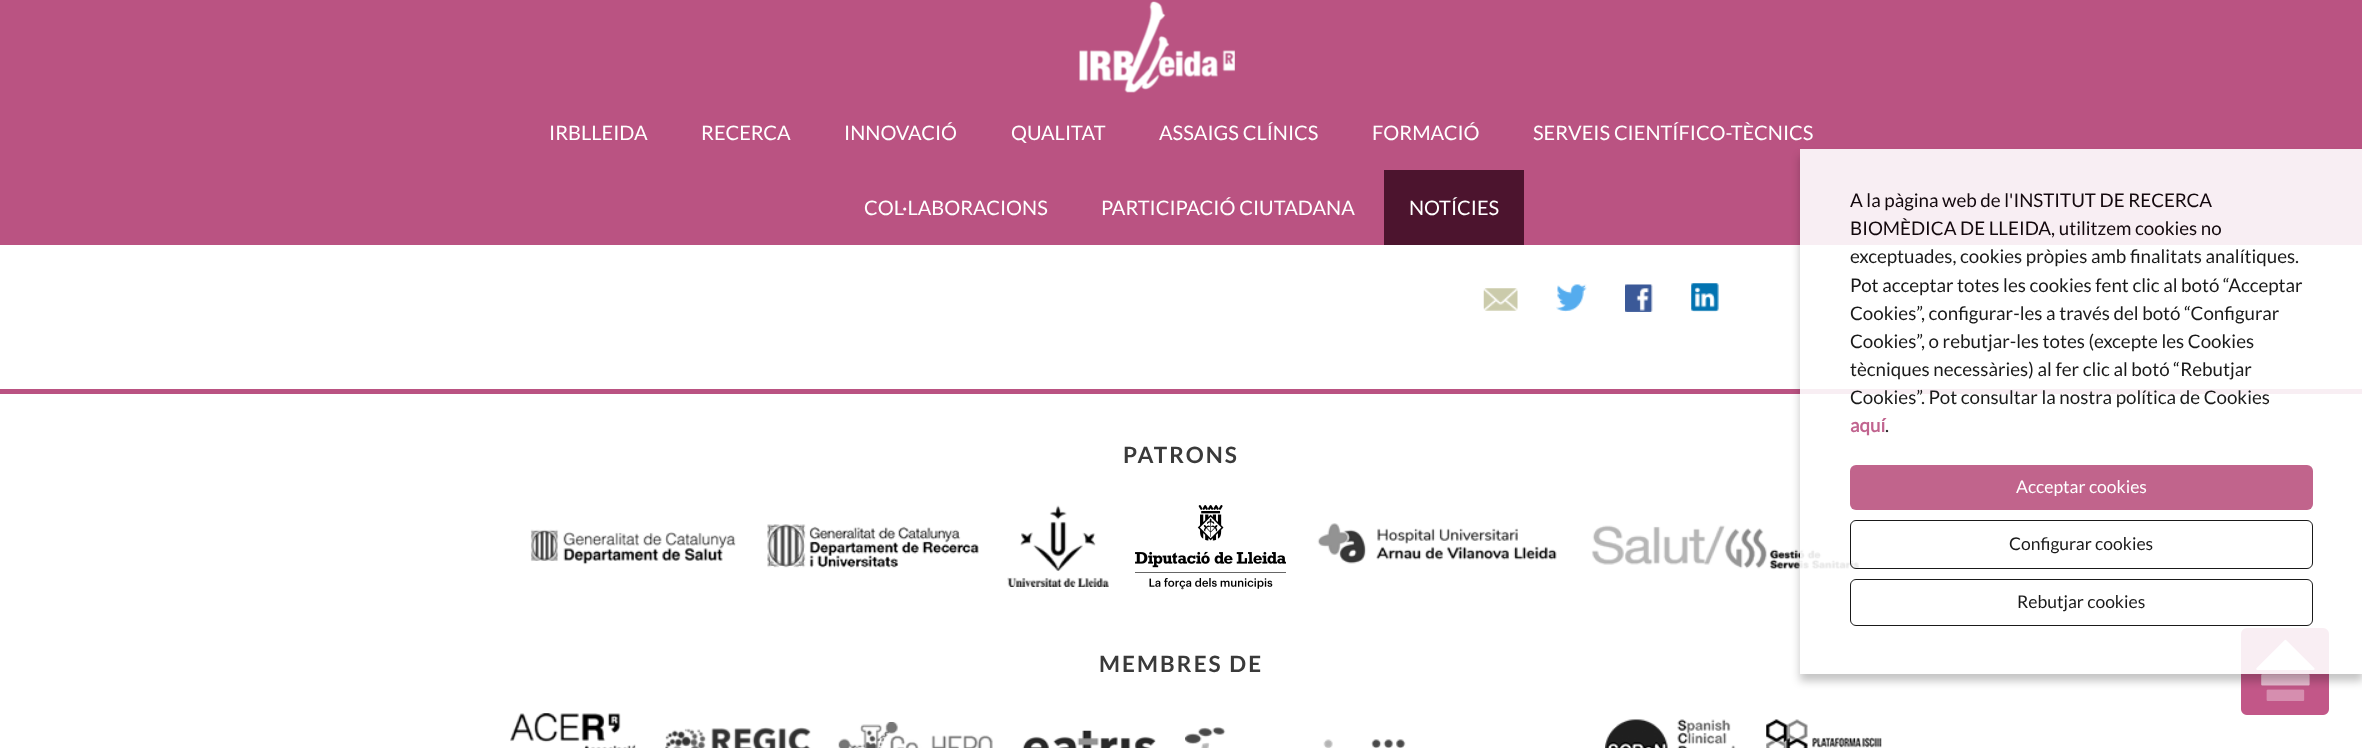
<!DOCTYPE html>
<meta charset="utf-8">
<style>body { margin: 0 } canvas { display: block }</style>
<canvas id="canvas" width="2362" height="748"></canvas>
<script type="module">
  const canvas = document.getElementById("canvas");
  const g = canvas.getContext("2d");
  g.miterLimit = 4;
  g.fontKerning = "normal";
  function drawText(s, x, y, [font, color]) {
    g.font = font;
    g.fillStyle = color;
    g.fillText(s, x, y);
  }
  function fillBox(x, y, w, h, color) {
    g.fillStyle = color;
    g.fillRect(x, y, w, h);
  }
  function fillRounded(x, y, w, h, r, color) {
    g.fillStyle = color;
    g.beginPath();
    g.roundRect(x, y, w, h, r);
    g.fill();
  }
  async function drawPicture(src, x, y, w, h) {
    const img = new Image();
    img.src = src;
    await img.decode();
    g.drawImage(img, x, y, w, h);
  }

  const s1 = ["20px Lato", "#FFFFFF"];
  const s2 = ["18.75px Lato", "#13080D"];
  const s3 = ["18.75px Lato", "#1A1A1A"];
  const s4 = ["bold 18.75px 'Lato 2'", "#C1648F"];
  const s5 = ["17.5px Lato", "#FFFFFF"];
  const s6 = ["17.5px Lato", "#1A1A1A"];
  const s7 = ["bold 22.5px Lato", "#3A3A3A"];

  fillBox(0, 0, 2362, 748, "#FFFFFF");
  fillBox(0, 0, 2362, 245, "#BA5382");
  await drawPicture("pic1.png", 1079, 1, 156, 92);
  drawText("IRBLLEIDA", 549, 140, s1);
  drawText("RECERCA", 701, 140, s1);
  drawText("INNOVACIÓ", 844, 140, s1);
  drawText("QUALITAT", 1011, 140, s1);
  drawText("ASSAIGS CLÍNICS", 1159, 140, s1);
  drawText("FORMACIÓ", 1372, 140, s1);
  drawText("SERVEIS CIENTÍFICO-TÈCNICS", 1533, 140, s1);
  drawText("COL·LABORACIONS", 864, 215, s1);
  drawText("PARTICIPACIÓ CIUTADANA", 1101, 215, s1);
  fillBox(1384, 170, 140, 75, "#4C142E");
  drawText("NOTÍCIES", 1409, 215, s1);
  await drawPicture("pic2.png", 1483, 288, 35, 23);
  await drawPicture("pic3.png", 1556, 284, 31, 28);
  await drawPicture("pic4.png", 1625, 284, 28, 28);
  await drawPicture("pic5.png", 1691, 283, 28, 29);
  fillBox(0, 389, 2362, 5, "#BA5382");
  await drawPicture("pic11.png", 1591, 525, 269, 45);
  await drawPicture("pic19.png", 2241, 628, 88, 87);
  g.save();
  g.beginPath();
  g.moveTo(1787, 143);
  g.lineTo(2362, 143);
  g.lineTo(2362, 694);
  g.lineTo(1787, 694);
  g.closePath();
  g.moveTo(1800, 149);
  g.lineTo(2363, 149);
  g.lineTo(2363, 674);
  g.lineTo(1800, 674);
  g.closePath();
  g.clip("evenodd");
  g.fillStyle = "rgba(0, 0, 0, 0.23)";
  g.filter = "blur(4px)";
  g.beginPath();
  g.rect(1800, 156, 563, 525);
  g.fill();
  g.filter = "none";
  g.restore();
  fillBox(1800, 149, 562, 525, "rgba(255, 255, 255, 0.9)");
  drawText("A la pàgina web de l'INSTITUT DE RECERCA", 1850, 207, s2);
  drawText("BIOMÈDICA DE LLEIDA, utilitzem cookies no", 1850, 235, s2);
  drawText("exceptuades, cookies pròpies amb finalitats analítiques.", 1850, 263, s3);
  drawText("Pot acceptar totes les cookies fent clic al botó “Acceptar", 1850, 292, s3);
  drawText("Cookies”, configurar-les a través del botó “Configurar", 1850, 320, s3);
  drawText("Cookies”, o rebutjar-les totes (excepte les Cookies", 1850, 348, s3);
  drawText("tècniques necessàries) al fer clic al botó “Rebutjar", 1850, 376, s3);
  drawText("Cookies”. Pot consultar la nostra política de Cookies", 1850, 404, s3);
  drawText("aquí", 1850, 432, s4);
  drawText(".", 1885, 432, s3);
  fillRounded(1850, 465, 463, 45, 6, "#C1648C");
  drawText("Acceptar cookies", 2016, 493, s5);
  g.beginPath();
  g.roundRect(1850.5, 520.5, 462, 48, 5.5);
  g.strokeStyle = "rgba(0, 0, 0, 0.9)";
  g.stroke();
  drawText("Configurar cookies", 2009, 550, s6);
  g.beginPath();
  g.roundRect(1850.5, 579.5, 462, 46, 5.5);
  g.strokeStyle = "#1A1A1A";
  g.stroke();
  drawText("Rebutjar cookies", 2017, 608, s6);
  g.letterSpacing = "2.1px";
  drawText("PATRONS", 1123, 463, s7);
  await drawPicture("pic6.png", 530, 529, 206, 36);
  await drawPicture("pic7.png", 767, 524, 212, 44);
  await drawPicture("pic8.png", 1007, 505, 102, 82);
  await drawPicture("pic9.png", 1135, 505, 151, 85);
  await drawPicture("pic10.png", 1317, 523, 240, 41);
  drawText("MEMBRES DE", 1099, 672, s7);
  await drawPicture("pic12.png", 510, 713, 126, 35);
  await drawPicture("pic13.png", 665, 727, 146, 21);
  await drawPicture("pic14.png", 838, 722, 155, 26);
  await drawPicture("pic15.png", 1022, 730, 134, 18);
  await drawPicture("pic16.png", 1185, 727, 221, 21);
  await drawPicture("pic17.png", 1605, 719, 131, 29);
  await drawPicture("pic18.png", 1766, 719, 116, 29);
</script>
